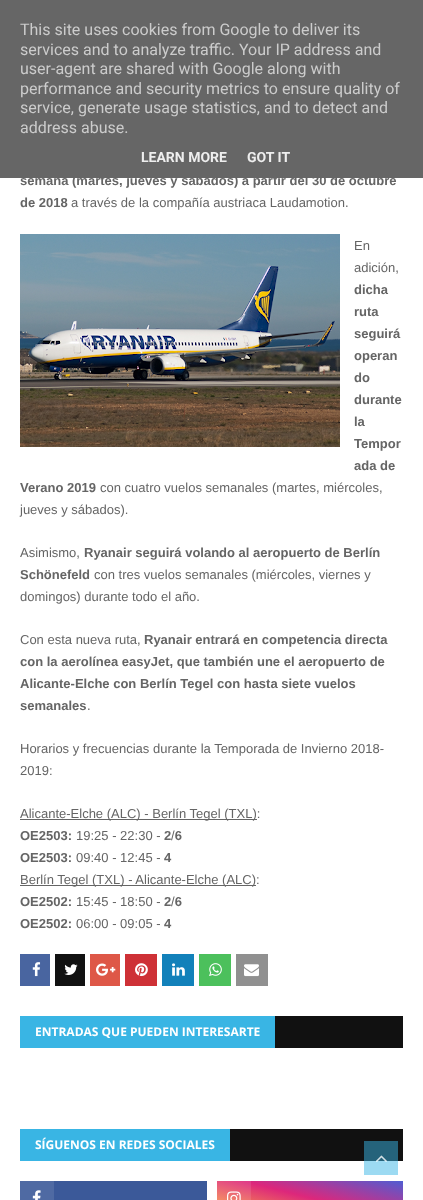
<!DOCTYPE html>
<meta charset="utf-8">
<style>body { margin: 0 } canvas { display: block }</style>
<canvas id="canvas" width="423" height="1200"></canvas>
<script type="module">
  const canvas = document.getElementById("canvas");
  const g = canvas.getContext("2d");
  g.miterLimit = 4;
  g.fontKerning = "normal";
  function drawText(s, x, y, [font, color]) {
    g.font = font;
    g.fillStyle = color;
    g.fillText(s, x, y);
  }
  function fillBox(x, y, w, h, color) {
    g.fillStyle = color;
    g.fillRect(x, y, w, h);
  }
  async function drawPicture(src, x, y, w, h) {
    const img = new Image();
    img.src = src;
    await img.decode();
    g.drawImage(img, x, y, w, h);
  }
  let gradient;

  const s1 = ["bold 13px Liberation Sans", "#656565"];
  const s2 = ["16px Roboto", "#CCCCCC"];
  const s3 = ["bold 14px Roboto", "#EEEEEE"];
  const s4 = ["13px Liberation Sans", "#656565"];
  const s5 = ["bold 12px Open Sans", "#FFFFFF"];

  fillBox(0, 0, 423, 1200, "#FFFFFF");
  drawText("semana (martes, jueves y sábados) a partir del 30 de octubre", 20, 185, s1);
  fillBox(0, 0, 423, 178, "#666666");
  drawText("This site uses cookies from Google to deliver its", 20, 35, s2);
  drawText("services and to analyze traffic. Your IP address and", 20, 55, s2);
  drawText("user-agent are shared with Google along with", 20, 74, s2);
  drawText("performance and security metrics to ensure quality of", 20, 94, s2);
  drawText("service, generate usage statistics, and to detect and", 20, 113, s2);
  drawText("address abuse.", 20, 133, s2);
  drawText("LEARN MORE", 141, 162, s3);
  drawText("GOT IT", 247, 162, s3);
  fillBox(364, 1161, 34, 14, "#9CDAF2");
  drawText("de 2018", 20, 207, s1);
  drawText("a través de la compañía austriaca Laudamotion.", 71, 207, s4);
  await drawPicture("pic1.png", 20, 234, 320, 213);
  drawText("En", 354, 250, s4);
  drawText("adición,", 354, 272, s4);
  drawText("dicha", 354, 294, s1);
  drawText("ruta", 354, 316, s1);
  drawText("seguirá", 354, 338, s1);
  drawText("operan", 354, 360, s1);
  drawText("do", 354, 382, s1);
  drawText("durante", 354, 404, s1);
  drawText("la", 354, 426, s1);
  drawText("Tempor", 354, 448, s1);
  drawText("ada de", 354, 470, s1);
  drawText("Verano 2019", 20, 492, s1);
  drawText("con cuatro vuelos semanales (martes, miércoles,", 100, 492, s4);
  drawText("jueves y sábados).", 20, 514, s4);
  drawText("Asimismo,", 20, 557, s4);
  drawText("Ryanair seguirá volando al aeropuerto de Berlín", 84, 557, s1);
  drawText("Schönefeld", 20, 579, s1);
  drawText("con tres vuelos semanales (miércoles, viernes y", 94, 579, s4);
  drawText("domingos) durante todo el año.", 20, 601, s4);
  drawText("Con esta nueva ruta,", 20, 644, s4);
  drawText("Ryanair entrará en competencia directa", 144, 644, s1);
  drawText("con la aerolínea easyJet, que también une el aeropuerto de", 20, 666, s1);
  drawText("Alicante-Elche con Berlín Tegel con hasta siete vuelos", 20, 688, s1);
  drawText("semanales", 20, 710, s1);
  drawText(".", 87, 710, s4);
  drawText("Horarios y frecuencias durante la Temporada de Invierno 2018-", 20, 753, s4);
  drawText("2019:", 20, 775, s4);
  fillBox(20, 819, 237, 1, "#656565");
  drawText("Alicante-Elche (ALC) - Berlín Tegel (TXL):", 20, 818, s4);
  drawText("OE2503:", 20, 840, s1);
  drawText("19:25 - 22:30 -", 76, 840, s4);
  drawText("2 6", 164, 840, s1);
  drawText("/", 171, 840, s4);
  drawText("OE2503:", 20, 862, s1);
  drawText("09:40 - 12:45 -", 76, 862, s4);
  drawText("4", 164, 862, s1);
  fillBox(20, 885, 236, 1, "#656565");
  drawText("Berlín Tegel (TXL) - Alicante-Elche (ALC):", 20, 884, s4);
  drawText("OE2502:", 20, 906, s1);
  drawText("15:45 - 18:50 -", 76, 906, s4);
  drawText("2 6", 164, 906, s1);
  drawText("/", 171, 906, s4);
  drawText("OE2502:", 20, 928, s1);
  drawText("06:00 - 09:05 -", 76, 928, s4);
  drawText("4", 164, 928, s1);
  fillBox(20, 954, 30, 32, "#4965A0");
  await drawPicture("pic2.png", 32, 962, 9, 15);
  fillBox(55, 954, 30, 32, "#121212");
  await drawPicture("pic3.png", 64, 964, 14, 11);
  fillBox(90, 954, 30, 32, "#DE5747");
  await drawPicture("pic4.png", 96, 963, 20, 13);
  fillBox(125, 954, 32, 32, "#CE3136");
  await drawPicture("pic5.png", 135, 963, 13, 14);
  fillBox(162, 954, 32, 32, "#1281BA");
  await drawPicture("pic6.png", 172, 963, 13, 13);
  fillBox(199, 954, 32, 32, "#4CC05C");
  await drawPicture("pic7.png", 209, 963, 13, 13);
  fillBox(236, 954, 32, 32, "#909090");
  await drawPicture("pic8.png", 244, 964, 15, 13);
  fillBox(275, 1016, 128, 32, "#111111");
  fillBox(20, 1016, 255, 32, "#39B5E4");
  drawText("ENTRADAS QUE PUEDEN INTERESARTE", 35, 1036, s5);
  fillBox(230, 1129, 173, 32, "#111111");
  fillBox(364, 1141, 34, 20, "#25637B");
  fillBox(20, 1129, 210, 32, "#39B5E4");
  drawText("SÍGUENOS EN REDES SOCIALES", 35, 1149, s5);
  fillBox(54, 1181, 153, 19, "#3B5999");
  fillBox(20, 1181, 34, 19, "#4F6AA3");
  await drawPicture("pic9.png", 32, 1190, 9, 10);
  gradient = g.createLinearGradient(300, 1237, 320, 1159);
  gradient.addColorStop(0, "#FFB13D");
  gradient.addColorStop(0.5, "#DD277B");
  gradient.addColorStop(1, "#4D5ED4");
  g.fillStyle = gradient;
  g.fillRect(251, 1181, 152, 19);
  gradient = g.createLinearGradient(300, 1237, 320, 1159);
  gradient.addColorStop(0, "#FFB950");
  gradient.addColorStop(0.5, "#E03D88");
  gradient.addColorStop(1, "#5F6ED8");
  g.fillStyle = gradient;
  g.fillRect(217, 1181, 34, 19);
  await drawPicture("pic10.png", 227, 1191, 14, 9);
  await drawPicture("pic11.png", 376, 1155, 11, 7);
</script>
